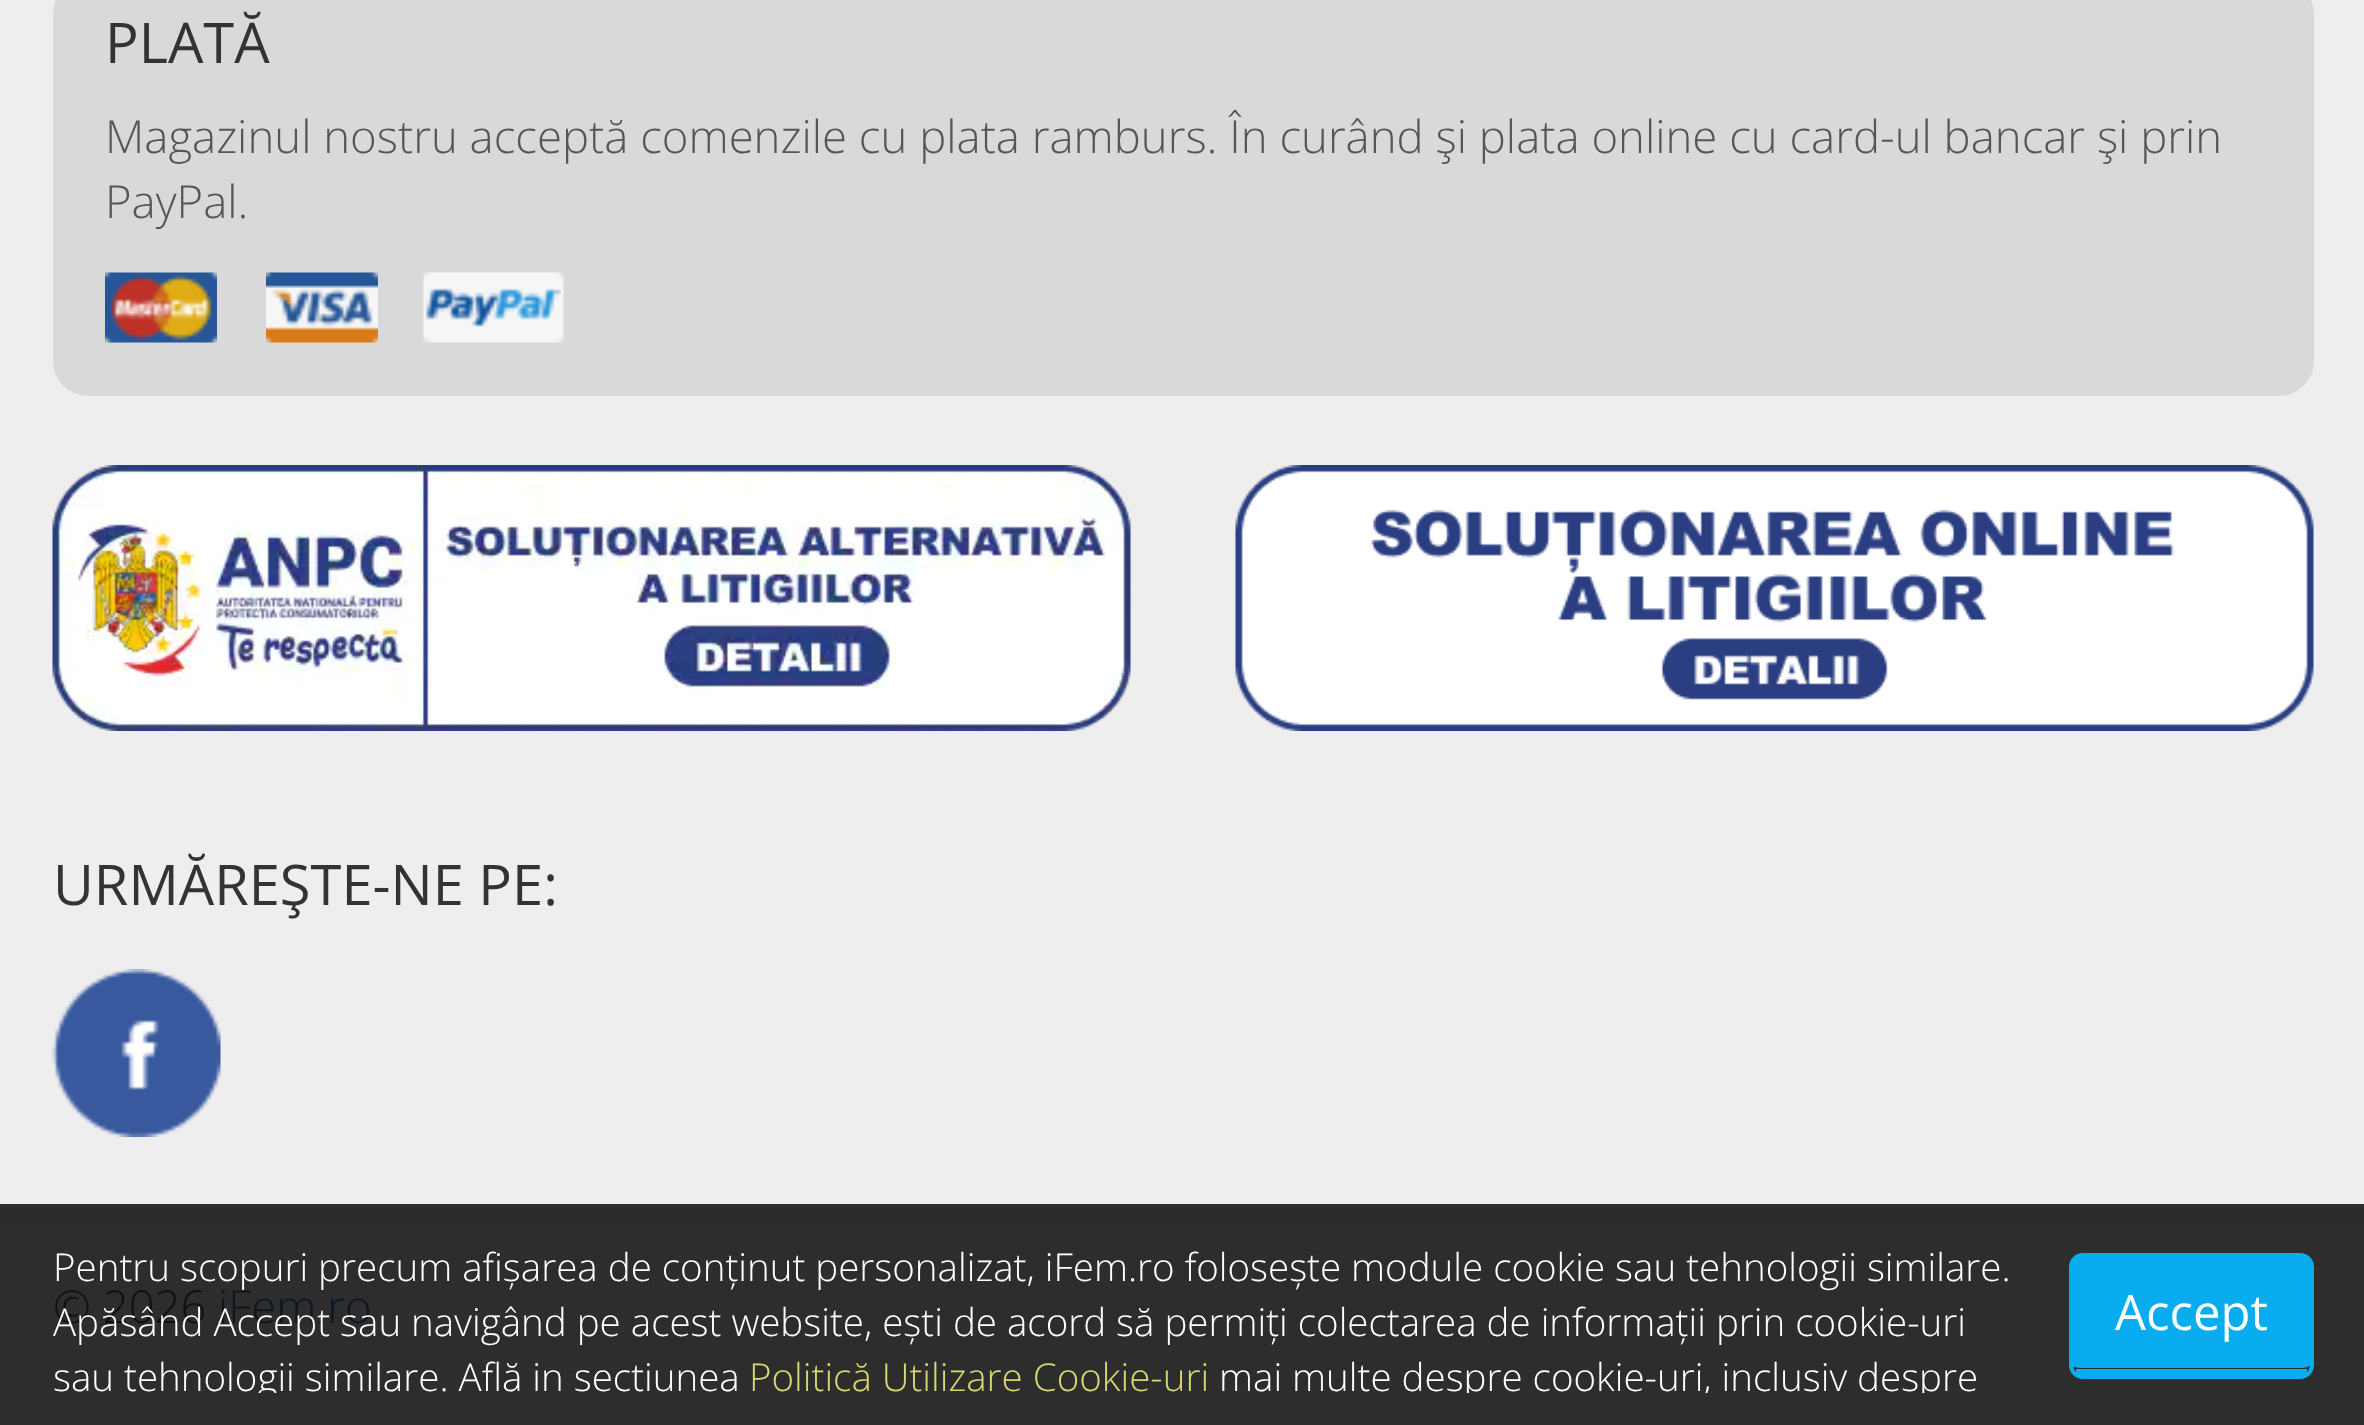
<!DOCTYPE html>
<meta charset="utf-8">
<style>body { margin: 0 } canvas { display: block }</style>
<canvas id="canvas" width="2364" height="1425"></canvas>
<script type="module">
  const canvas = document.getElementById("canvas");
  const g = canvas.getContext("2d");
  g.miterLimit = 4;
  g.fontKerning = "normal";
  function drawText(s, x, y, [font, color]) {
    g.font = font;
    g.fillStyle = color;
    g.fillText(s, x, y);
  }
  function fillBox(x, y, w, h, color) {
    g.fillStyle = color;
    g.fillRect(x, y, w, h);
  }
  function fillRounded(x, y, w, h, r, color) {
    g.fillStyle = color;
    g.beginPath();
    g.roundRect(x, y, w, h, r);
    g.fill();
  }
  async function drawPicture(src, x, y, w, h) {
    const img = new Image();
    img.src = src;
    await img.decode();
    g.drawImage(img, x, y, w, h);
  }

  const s1 = ["56px Open Sans", "#333333"];
  const s2 = ["300 45.5px Open Sans", "#565656"];
  const s3 = ["300 45.5px Open Sans", "#101010"];
  const s4 = ["300 45.5px Open Sans", "#0A1723"];
  const s5 = ["300 38.5px Open Sans", "#FFFFFF"];
  const s6 = ["300 38.5px Open Sans", "#D8D76F"];
  const s7 = ["49px Open Sans", "#FFFFFF"];

  fillBox(0, 0, 2364, 1425, "#EEEEEE");
  fillBox(0, 1204, 2364, 4, "#2D2D2D");
  fillBox(0, 1208, 2364, 14, "#2B2B2B");
  fillRounded(53, -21, 2261, 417, 35, "#D9D9D9");
  drawText("PLATĂ", 105, 63, s1);
  drawText("Magazinul nostru acceptă comenzile cu plata ramburs. În curând şi plata online cu card-ul bancar şi prin", 105, 153, s2);
  drawText("PayPal.", 105, 218, s2);
  await drawPicture("pic1.png", 105, 272, 112, 71);
  await drawPicture("pic2.png", 266, 272, 112, 71);
  await drawPicture("pic3.png", 423, 272, 141, 71);
  await drawPicture("pic4.png", 52, 465, 1079, 266);
  await drawPicture("pic5.png", 1235, 465, 1079, 266);
  drawText("URMĂREŞTE-NE PE:", 53, 905, s1);
  await drawPicture("pic6.png", 52, 969, 169, 168);
  fillBox(0, 1222, 2364, 203, "#2D2D2D");
  drawText("© 2026", 53, 1323, s3);
  drawText("iFem.ro", 218, 1323, s4);
  drawText("Pentru scopuri precum afișarea de conținut personalizat, iFem.ro folosește module cookie sau tehnologii similare.", 53, 1281, s5);
  drawText("Apăsând Accept sau navigând pe acest website, ești de acord să permiți colectarea de informații prin cookie-uri", 53, 1336, s5);
  g.save();
  g.beginPath();
  g.rect(53, 1239, 1981, 154);
  g.clip();
  drawText("sau tehnologii similare. Află in sectiunea", 53, 1391, s5);
  g.restore();
  drawText("Politică Utilizare Cookie-uri", 749, 1391, s6);
  g.save();
  g.beginPath();
  g.rect(53, 1239, 1981, 154);
  g.clip();
  drawText("mai multe despre cookie-uri, inclusiv despre", 1219, 1391, s5);
  g.restore();
  g.fillStyle = "#09ADEF";
  g.beginPath();
  g.moveTo(2082, 1256);
  g.lineTo(2300, 1256);
  g.bezierCurveTo(2305, 1256, 2310, 1261, 2310, 1267);
  g.lineTo(2310, 1365);
  g.bezierCurveTo(2310, 1367, 2305, 1368, 2300, 1368);
  g.lineTo(2082, 1368);
  g.bezierCurveTo(2077, 1368, 2072, 1367, 2072, 1365);
  g.lineTo(2072, 1267);
  g.bezierCurveTo(2072, 1261, 2077, 1256, 2082, 1256);
  g.closePath();
  g.fill();
  g.beginPath();
  g.roundRect(2071, 1255, 241, 122, 12);
  g.strokeStyle = "#09ADEF";
  g.lineWidth = 4;
  g.stroke();
  fillBox(2076, 1369, 231, 6, "#09ADEF");
  drawText("Accept", 2115, 1330, s7);
</script>
